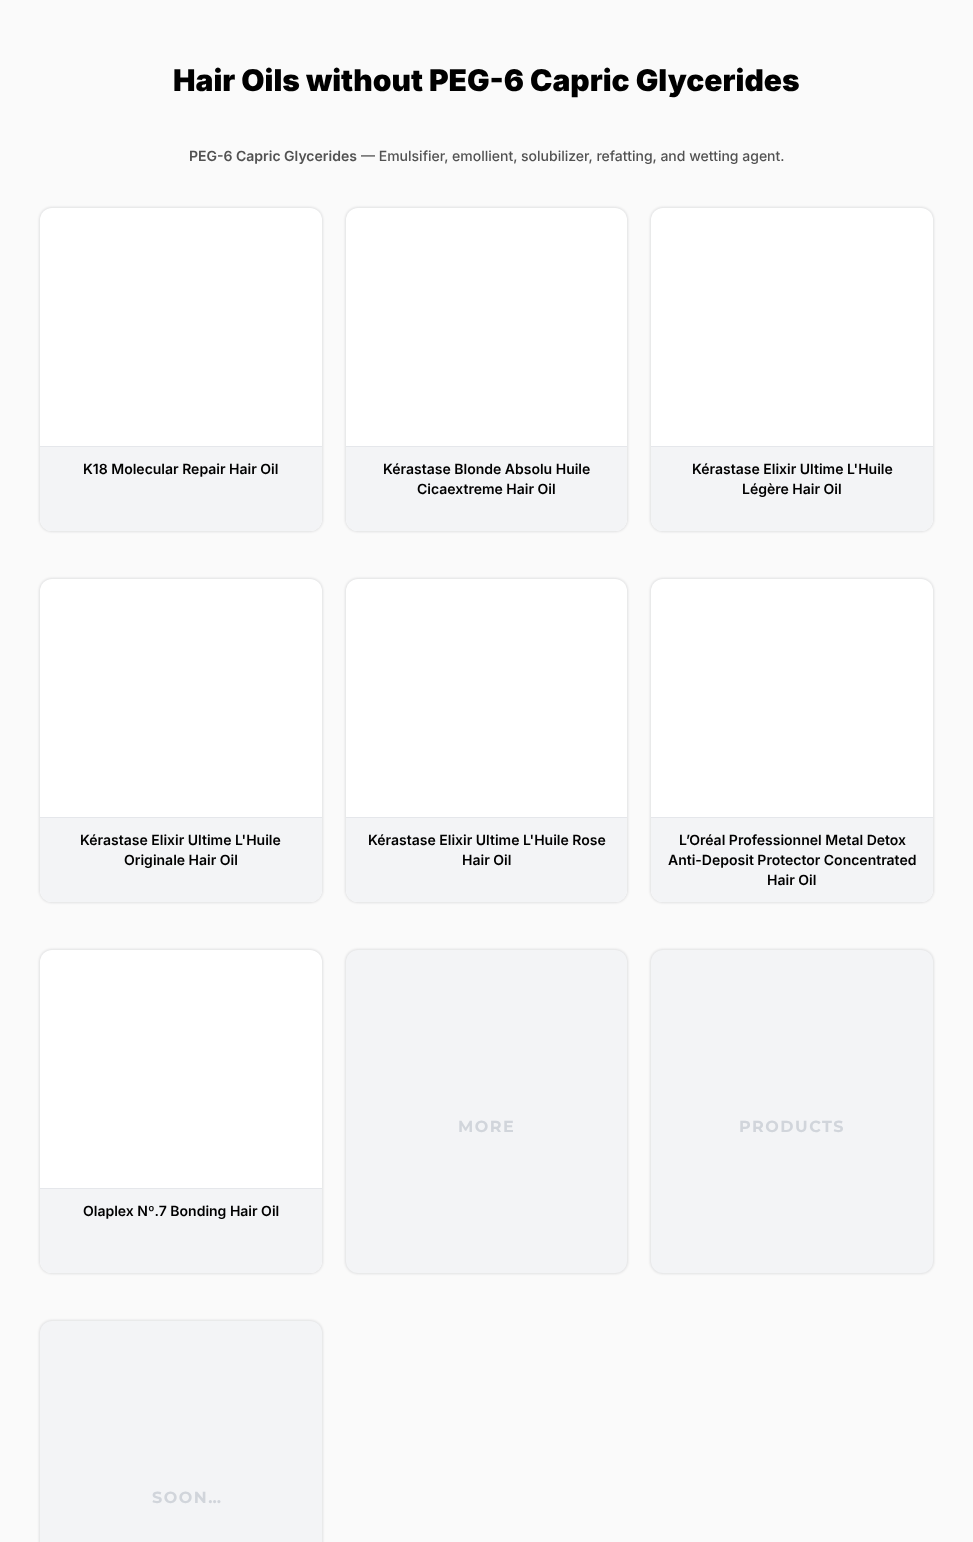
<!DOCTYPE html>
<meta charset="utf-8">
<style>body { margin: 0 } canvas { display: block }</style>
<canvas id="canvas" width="973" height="1542"></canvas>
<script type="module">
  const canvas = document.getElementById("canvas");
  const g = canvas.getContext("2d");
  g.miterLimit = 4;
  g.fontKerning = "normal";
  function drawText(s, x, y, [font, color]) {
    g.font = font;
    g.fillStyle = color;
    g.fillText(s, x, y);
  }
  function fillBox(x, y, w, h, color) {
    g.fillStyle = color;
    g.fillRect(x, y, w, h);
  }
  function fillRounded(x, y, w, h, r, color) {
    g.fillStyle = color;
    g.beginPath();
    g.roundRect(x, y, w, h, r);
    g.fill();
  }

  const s1 = ["900 30px Inter", "#000000"];
  const s2 = ["600 14px Inter", "#525252"];
  const s3 = ["500 14px Inter", "#525252"];
  const s4 = ["600 14px Inter", "#000000"];
  const s5 = ["bold 16px Montserrat", "#D1D5DB"];

  fillBox(0, 0, 973, 1542, "#FAFAFA");
  drawText("Hair Oils without PEG-6 Capric Glycerides", 173, 91, s1);
  drawText("PEG-6 Capric Glycerides", 189, 161, s2);
  drawText("— Emulsifier, emollient, solubilizer, refatting, and wetting agent.", 361, 161, s3);
  g.fillStyle = "rgba(3, 7, 18, 0.1)";
  g.filter = "blur(1px)";
  g.beginPath();
  g.roundRect(39, 207, 284, 325, 13);
  g.fill();
  g.filter = "none";
  fillRounded(40, 208, 282, 323, 12, "#FFFFFF");
  g.fillStyle = "#F3F4F6";
  g.beginPath();
  g.roundRect(40, 447, 282, 84, [0, 0, 12, 12]);
  g.fill();
  fillBox(40, 446, 282, 1, "#E5E7EB");
  drawText("K18 Molecular Repair Hair Oil", 83, 474, s4);
  g.fillStyle = "rgba(3, 7, 18, 0.1)";
  g.filter = "blur(1px)";
  g.beginPath();
  g.roundRect(345, 207, 283, 325, 13);
  g.fill();
  g.filter = "none";
  fillRounded(346, 208, 281, 323, 12, "#FFFFFF");
  g.fillStyle = "#F3F4F6";
  g.beginPath();
  g.roundRect(346, 447, 281, 84, [0, 0, 12, 12]);
  g.fill();
  fillBox(346, 446, 281, 1, "#E5E7EB");
  drawText("Kérastase Blonde Absolu Huile", 383, 474, s4);
  drawText("Cicaextreme Hair Oil", 417, 494, s4);
  g.fillStyle = "rgba(3, 7, 18, 0.1)";
  g.filter = "blur(1px)";
  g.beginPath();
  g.roundRect(650, 207, 284, 325, 13);
  g.fill();
  g.filter = "none";
  fillRounded(651, 208, 282, 323, 12, "#FFFFFF");
  g.fillStyle = "#F3F4F6";
  g.beginPath();
  g.roundRect(651, 447, 282, 84, [0, 0, 12, 12]);
  g.fill();
  fillBox(651, 446, 282, 1, "#E5E7EB");
  drawText("Kérastase Elixir Ultime L'Huile", 692, 474, s4);
  drawText("Légère Hair Oil", 742, 494, s4);
  g.fillStyle = "rgba(3, 7, 18, 0.1)";
  g.filter = "blur(1px)";
  g.beginPath();
  g.roundRect(39, 578, 284, 325, 13);
  g.fill();
  g.filter = "none";
  fillRounded(40, 579, 282, 323, 12, "#FFFFFF");
  g.fillStyle = "#F3F4F6";
  g.beginPath();
  g.roundRect(40, 818, 282, 84, [0, 0, 12, 12]);
  g.fill();
  fillBox(40, 817, 282, 1, "#E5E7EB");
  drawText("Kérastase Elixir Ultime L'Huile", 80, 845, s4);
  drawText("Originale Hair Oil", 124, 865, s4);
  g.fillStyle = "rgba(3, 7, 18, 0.1)";
  g.filter = "blur(1px)";
  g.beginPath();
  g.roundRect(345, 578, 283, 325, 13);
  g.fill();
  g.filter = "none";
  fillRounded(346, 579, 281, 323, 12, "#FFFFFF");
  g.fillStyle = "#F3F4F6";
  g.beginPath();
  g.roundRect(346, 818, 281, 84, [0, 0, 12, 12]);
  g.fill();
  fillBox(346, 817, 281, 1, "#E5E7EB");
  drawText("Kérastase Elixir Ultime L'Huile Rose", 368, 845, s4);
  drawText("Hair Oil", 462, 865, s4);
  g.fillStyle = "rgba(3, 7, 18, 0.1)";
  g.filter = "blur(1px)";
  g.beginPath();
  g.roundRect(650, 578, 284, 325, 13);
  g.fill();
  g.filter = "none";
  fillRounded(651, 579, 282, 323, 12, "#FFFFFF");
  g.fillStyle = "#F3F4F6";
  g.beginPath();
  g.roundRect(651, 818, 282, 84, [0, 0, 12, 12]);
  g.fill();
  fillBox(651, 817, 282, 1, "#E5E7EB");
  drawText("L’Oréal Professionnel Metal Detox", 679, 845, s4);
  drawText("Anti-Deposit Protector Concentrated", 668, 865, s4);
  drawText("Hair Oil", 767, 885, s4);
  g.fillStyle = "rgba(3, 7, 18, 0.1)";
  g.filter = "blur(1px)";
  g.beginPath();
  g.roundRect(345, 949, 283, 325, 13);
  g.fill();
  g.filter = "none";
  fillRounded(346, 950, 281, 323, 12, "#F3F4F6");
  g.letterSpacing = "1.5px";
  drawText("MORE", 458, 1132, s5);
  g.fillStyle = "rgba(3, 7, 18, 0.1)";
  g.filter = "blur(1px)";
  g.beginPath();
  g.roundRect(650, 949, 284, 325, 13);
  g.fill();
  g.filter = "none";
  fillRounded(651, 950, 282, 323, 12, "#F3F4F6");
  drawText("PRODUCTS", 739, 1132, s5);
  g.fillStyle = "rgba(3, 7, 18, 0.1)";
  g.filter = "blur(1px)";
  g.beginPath();
  g.roundRect(39, 949, 284, 325, 13);
  g.fill();
  g.filter = "none";
  fillRounded(40, 950, 282, 323, 12, "#FFFFFF");
  g.fillStyle = "#F3F4F6";
  g.beginPath();
  g.roundRect(40, 1189, 282, 84, [0, 0, 12, 12]);
  g.fill();
  fillBox(40, 1188, 282, 1, "#E5E7EB");
  g.letterSpacing = "0px";
  drawText("Olaplex Nº.7 Bonding Hair Oil", 83, 1216, s4);
  g.fillStyle = "rgba(3, 7, 18, 0.1)";
  g.filter = "blur(1px)";
  g.beginPath();
  g.roundRect(39, 1320, 284, 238, 13);
  g.fill();
  g.filter = "none";
  fillRounded(40, 1321, 282, 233, 12, "#F3F4F6");
  g.letterSpacing = "1.5px";
  drawText("SOON…", 152, 1503, s5);
</script>
